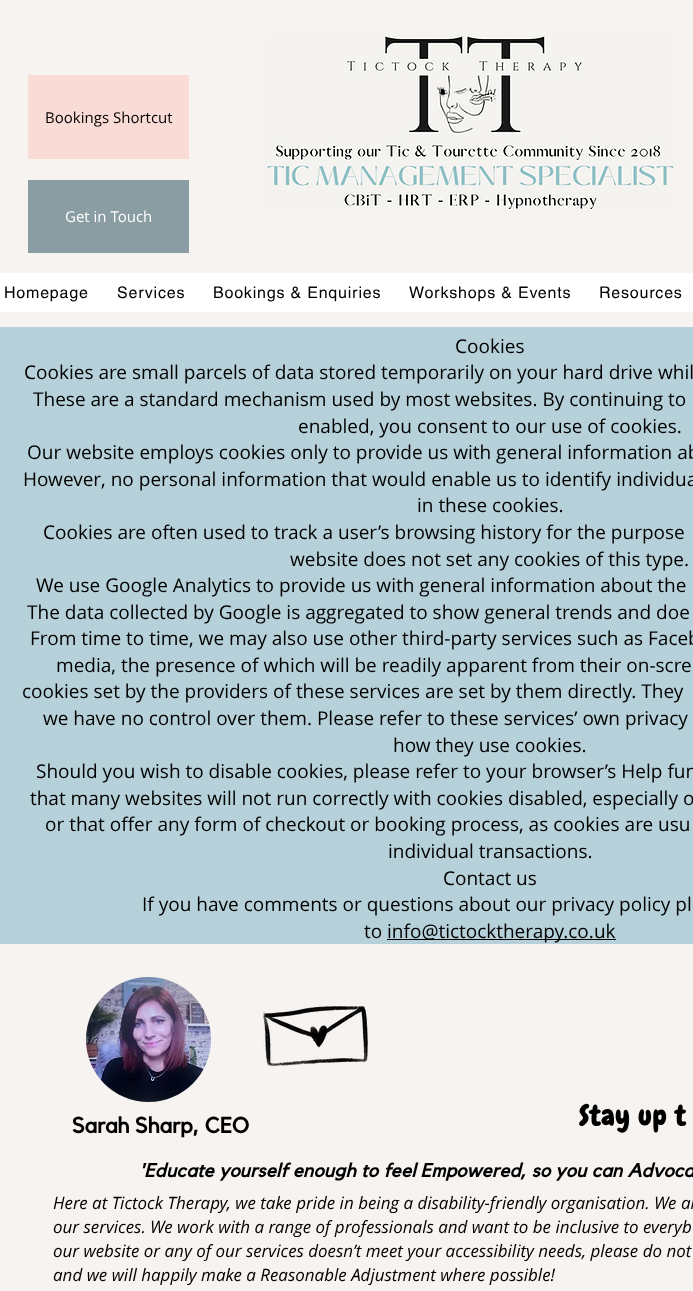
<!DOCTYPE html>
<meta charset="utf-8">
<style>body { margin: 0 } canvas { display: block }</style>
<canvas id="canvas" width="693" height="1291"></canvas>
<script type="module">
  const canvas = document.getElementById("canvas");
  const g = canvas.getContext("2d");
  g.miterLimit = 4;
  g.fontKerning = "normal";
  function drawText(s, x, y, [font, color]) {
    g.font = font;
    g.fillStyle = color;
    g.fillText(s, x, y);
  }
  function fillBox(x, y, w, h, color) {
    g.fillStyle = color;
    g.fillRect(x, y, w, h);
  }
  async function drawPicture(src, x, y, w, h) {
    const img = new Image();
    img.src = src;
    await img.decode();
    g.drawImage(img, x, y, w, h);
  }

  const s1 = ["15px Open Sans", "#000000"];
  const s2 = ["15px Open Sans", "#FFFFFF"];
  const s3 = ["16px helvetica", "#000000"];
  const s4 = ["19px Open Sans", "#000000"];
  const s5 = ["bold 22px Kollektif", "#000000"];
  const s6 = ["bold 27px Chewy", "#000000"];
  const s7 = ["italic bold 19px Kollektif", "#000000"];
  const s8 = ["italic 17px Open Sans", "#000000"];

  fillBox(0, 0, 693, 1291, "#B6D1D9");
  fillBox(0, 0, 693, 327, "#F6F3F0");
  fillBox(28, 75, 161, 84, "#FADCD6");
  drawText("Bookings Shortcut", 45, 123, s1);
  await drawPicture("pic1.png", 265, 34, 410, 177);
  fillBox(28, 180, 161, 73, "#899DA3");
  drawText("Get in Touch", 65, 222, s2);
  fillBox(0, 273, 693, 39, "#FFFFFF");
  g.letterSpacing = "0.8px";
  drawText("Homepage", 4, 298, s3);
  drawText("Services", 117, 298, s3);
  drawText("Bookings & Enquiries", 213, 298, s3);
  drawText("Workshops & Events", 409, 298, s3);
  drawText("Resources", 599, 298, s3);
  g.letterSpacing = "0px";
  drawText("Cookies", 455, 353, s4);
  drawText("Cookies are small parcels of data stored temporarily on your hard drive whil", 24, 379, s4);
  drawText("These are a standard mechanism used by most websites. By continuing to", 33, 406, s4);
  drawText("enabled, you consent to our use of cookies.", 298, 433, s4);
  drawText("Our website employs cookies only to provide us with general information ab", 27, 459, s4);
  drawText("However, no personal information that would enable us to identify individua", 23, 486, s4);
  drawText("in these cookies.", 417, 512, s4);
  drawText("Cookies are often used to track a user’s browsing history for the purpose", 43, 539, s4);
  drawText("website does not set any cookies of this type.", 290, 566, s4);
  drawText("We use Google Analytics to provide us with general information about the", 36, 592, s4);
  drawText("The data collected by Google is aggregated to show general trends and doe", 27, 619, s4);
  drawText("From time to time, we may also use other third-party services such as Faceb", 30, 645, s4);
  drawText("media, the presence of which will be readily apparent from their on-scre", 56, 672, s4);
  drawText("cookies set by the providers of these services are set by them directly. They", 22, 698, s4);
  drawText("we have no control over them. Please refer to these services’ own privacy", 43, 725, s4);
  drawText("how they use cookies.", 393, 752, s4);
  drawText("Should you wish to disable cookies, please refer to your browser’s Help fun", 36, 778, s4);
  drawText("that many websites will not run correctly with cookies disabled, especially o", 30, 805, s4);
  drawText("or that offer any form of checkout or booking process, as cookies are usu", 45, 831, s4);
  drawText("individual transactions.", 388, 858, s4);
  drawText("Contact us", 443, 885, s4);
  drawText("If you have comments or questions about our privacy policy pl", 142, 911, s4);
  drawText("to", 364, 938, s4);
  fillBox(387, 939, 229, 1, "#000000");
  drawText("info@tictocktherapy.co.uk", 387, 938, s4);
  fillBox(0, 944, 693, 347, "#F6F3F0");
  await drawPicture("pic2.png", 86, 977, 125, 125);
  await drawPicture("pic3.png", 263, 1006, 105, 61);
  drawText("Sarah Sharp, CEO", 72, 1133, s5);
  g.letterSpacing = "1.25px";
  drawText("Stay up t", 579, 1125, s6);
  g.letterSpacing = "0.2px";
  drawText("'Educate yourself enough to feel Empowered, so you can Advoca", 139, 1177, s7);
  g.letterSpacing = "0px";
  drawText("Here at Tictock Therapy, we take pride in being a disability-friendly organisation. We ar", 53, 1209, s8);
  drawText("our services. We work with a range of professionals and want to be inclusive to everyb", 53, 1233, s8);
  drawText("our website or any of our services doesn’t meet your accessibility needs, please do not", 53, 1257, s8);
  drawText("and we will happily make a Reasonable Adjustment where possible!", 53, 1281, s8);
</script>
